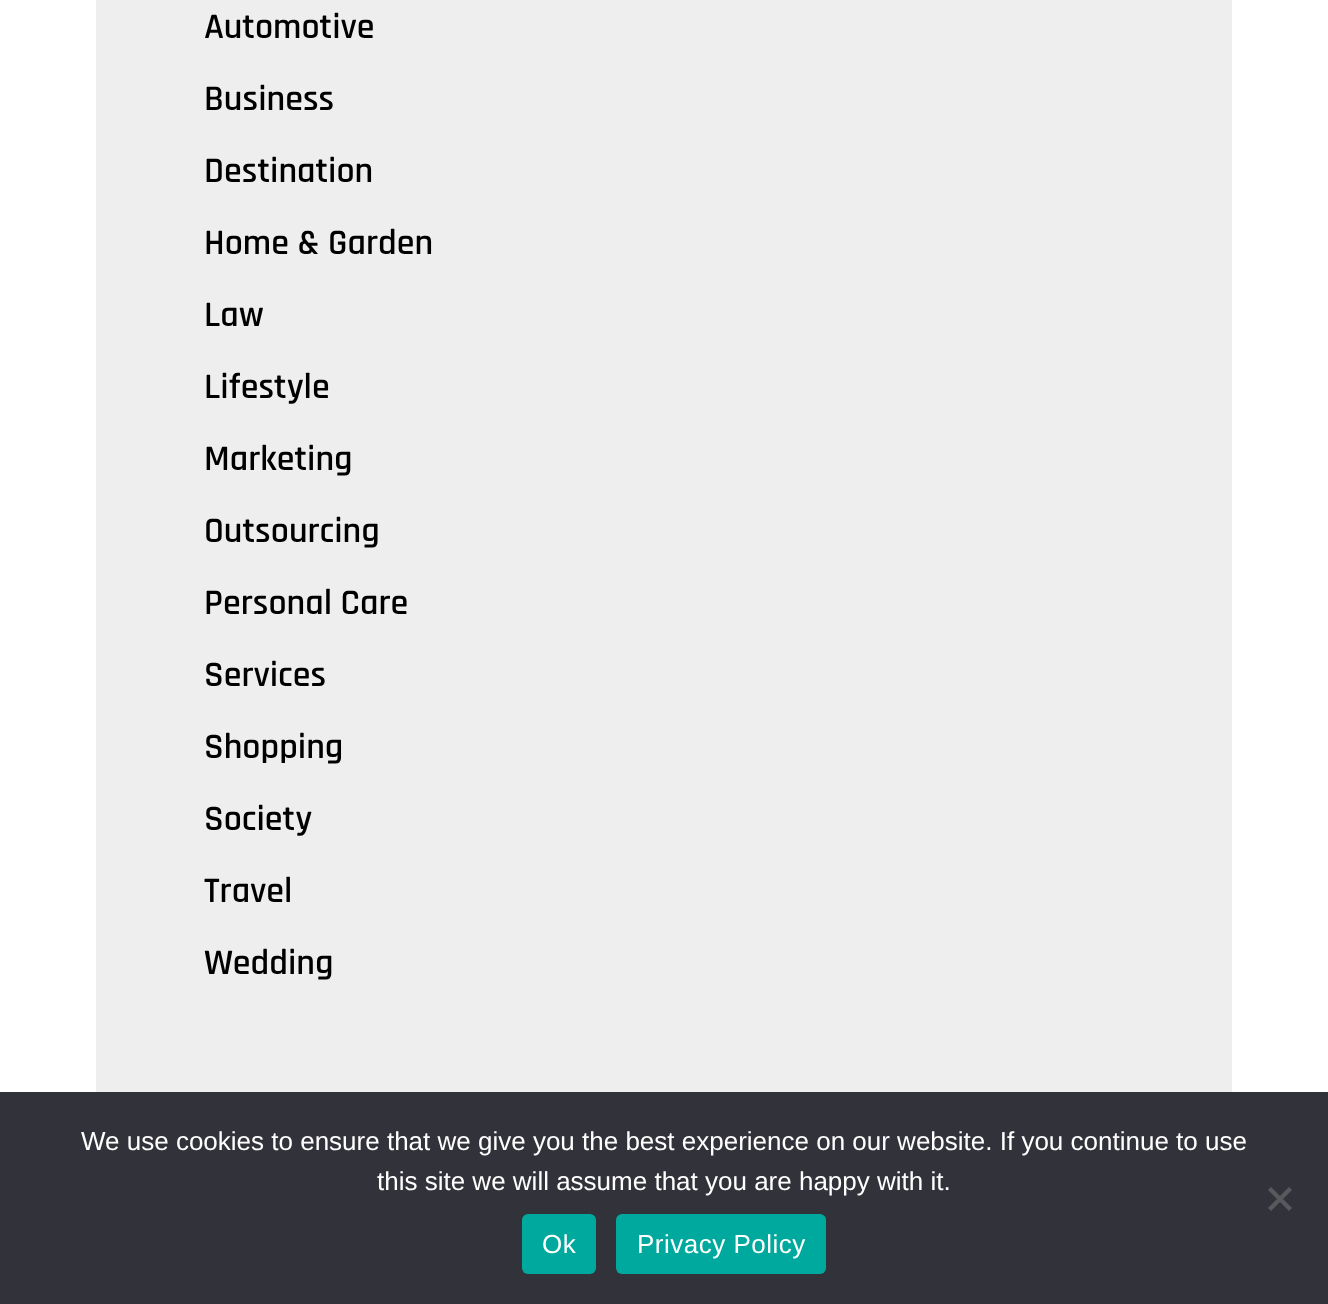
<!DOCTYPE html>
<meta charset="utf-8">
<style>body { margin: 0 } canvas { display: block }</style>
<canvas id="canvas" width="1328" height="1304"></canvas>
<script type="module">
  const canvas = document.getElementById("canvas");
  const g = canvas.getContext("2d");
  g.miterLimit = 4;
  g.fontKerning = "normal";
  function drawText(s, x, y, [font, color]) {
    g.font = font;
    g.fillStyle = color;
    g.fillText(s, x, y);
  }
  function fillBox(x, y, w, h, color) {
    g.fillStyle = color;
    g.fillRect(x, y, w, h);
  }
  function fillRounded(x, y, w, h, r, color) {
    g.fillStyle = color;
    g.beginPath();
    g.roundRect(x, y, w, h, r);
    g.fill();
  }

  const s1 = ["600 36px Rajdhani", "#000000"];
  const s2 = ["26px Liberation Sans", "#FFFFFF"];

  fillBox(0, 0, 1328, 1304, "#FFFFFF");
  fillBox(96, 0, 1136, 1092, "#EEEEEE");
  drawText("Automotive", 204, 38, s1);
  drawText("Business", 204, 110, s1);
  drawText("Destination", 204, 182, s1);
  drawText("Home & Garden", 204, 254, s1);
  drawText("Law", 204, 326, s1);
  drawText("Lifestyle", 204, 398, s1);
  drawText("Marketing", 204, 470, s1);
  drawText("Outsourcing", 204, 542, s1);
  drawText("Personal Care", 204, 614, s1);
  drawText("Services", 204, 686, s1);
  drawText("Shopping", 204, 758, s1);
  drawText("Society", 204, 830, s1);
  drawText("Travel", 204, 902, s1);
  drawText("Wedding", 204, 974, s1);
  fillBox(0, 1092, 1328, 212, "#32323A");
  drawText("We use cookies to ensure that we give you the best experience on our website. If you continue to use", 81, 1150, s2);
  drawText("this site we will assume that you are happy with it.", 377, 1190, s2);
  g.fillStyle = "#59595D";
  g.beginPath();
  g.moveTo(1289, 1187);
  g.lineTo(1292, 1190);
  g.lineTo(1271, 1211);
  g.lineTo(1268, 1208);
  g.closePath();
  g.fill();
  g.beginPath();
  g.moveTo(1268, 1190);
  g.lineTo(1271, 1187);
  g.lineTo(1292, 1208);
  g.lineTo(1289, 1211);
  g.closePath();
  g.fill();
  fillRounded(522, 1214, 74, 60, 6, "#00A99D");
  g.letterSpacing = "0.5px";
  drawText("Ok", 542, 1253, s2);
  fillRounded(616, 1214, 210, 60, 6, "#00A99D");
  drawText("Privacy Policy", 637, 1253, s2);
</script>
